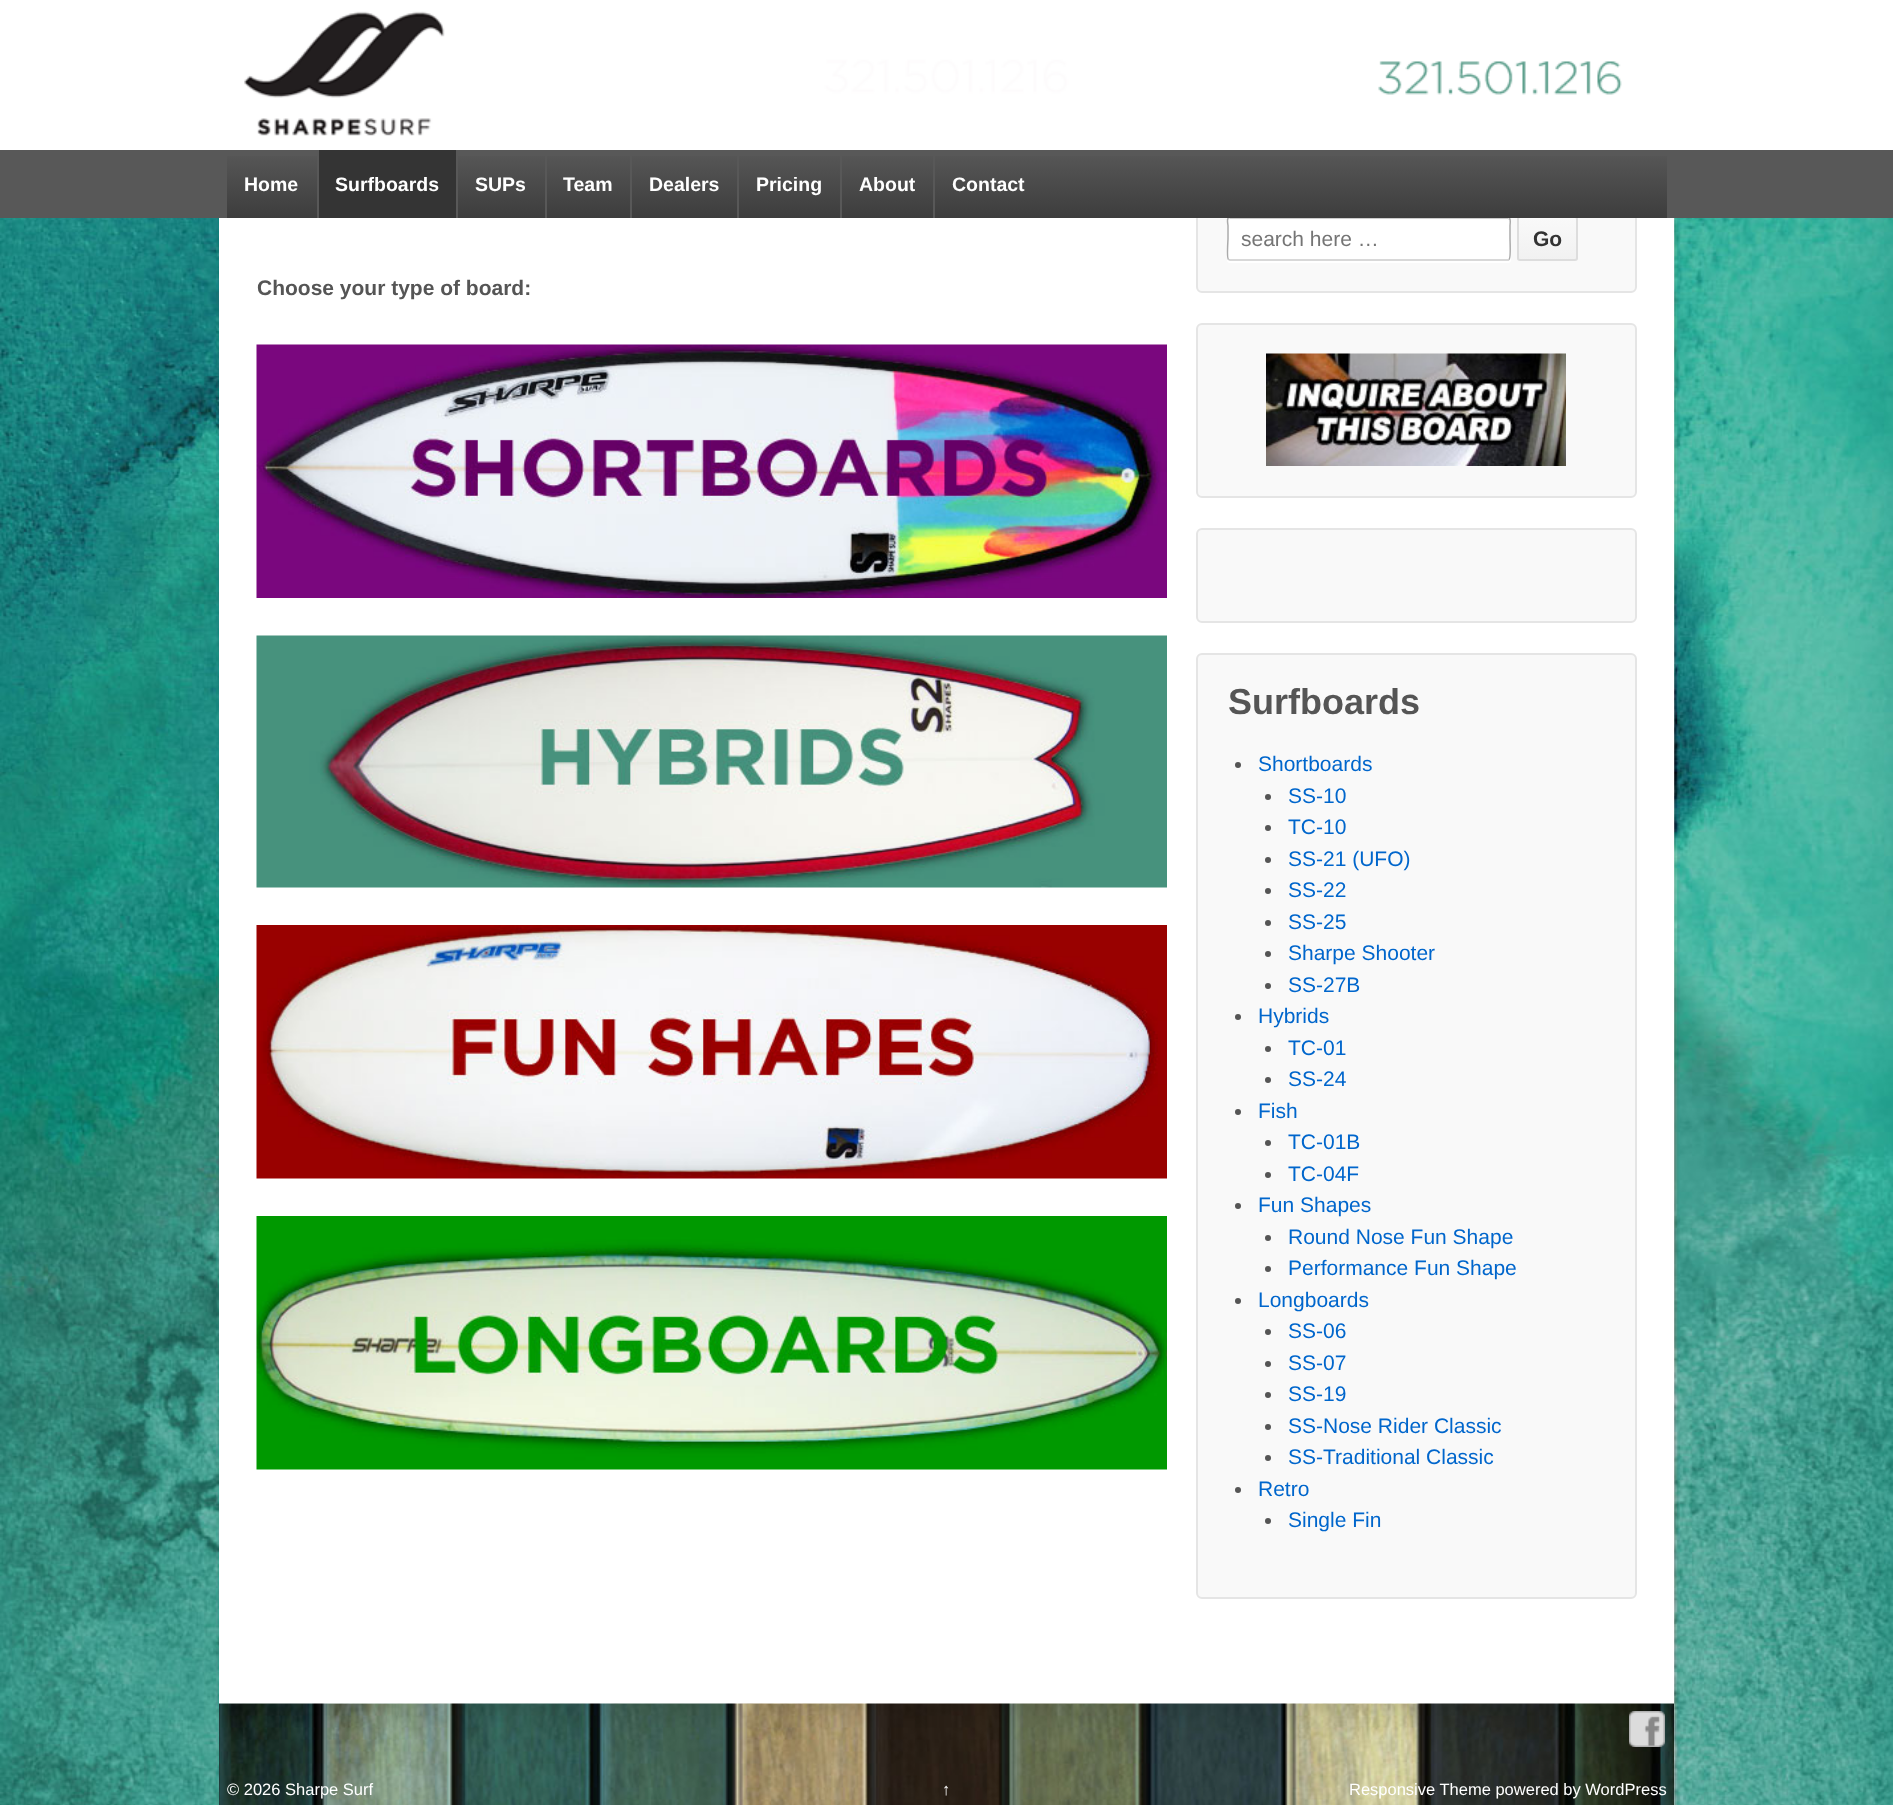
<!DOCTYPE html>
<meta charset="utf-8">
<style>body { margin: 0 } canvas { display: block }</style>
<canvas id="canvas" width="1893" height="1805"></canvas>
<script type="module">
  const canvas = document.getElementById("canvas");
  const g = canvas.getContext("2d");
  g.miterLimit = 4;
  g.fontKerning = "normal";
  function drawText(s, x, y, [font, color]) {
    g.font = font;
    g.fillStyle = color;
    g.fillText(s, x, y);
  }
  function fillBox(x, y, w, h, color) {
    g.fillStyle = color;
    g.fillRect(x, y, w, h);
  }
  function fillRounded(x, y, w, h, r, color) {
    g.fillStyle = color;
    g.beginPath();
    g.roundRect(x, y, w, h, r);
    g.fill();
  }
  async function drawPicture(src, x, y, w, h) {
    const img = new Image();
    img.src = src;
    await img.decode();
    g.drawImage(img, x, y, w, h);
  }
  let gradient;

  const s1 = ["bold 19.5px Liberation Sans", "#FFFFFF"];
  const s2 = ["bold 21px Liberation Sans", "#555555"];
  const s3 = ["21px Liberation Sans", "#757575"];
  const s4 = ["bold 21px Liberation Sans", "#333333"];
  const s5 = ["bold 36px Liberation Sans", "#555555"];
  const s6 = ["21px Liberation Sans", "#0066CC"];
  const s7 = ["16.5px Liberation Sans", "#FFFFFF"];

  fillBox(0, 0, 1893, 1805, "#FFFFFF");
  await drawPicture("pic1.png", 0, 218, 1893, 1587);
  await drawPicture("pic2.png", 244, 11, 1378, 125);
  fillBox(219, 218, 1455, 1486, "#FFFFFF");
  g.fillStyle = "#F9F9F9";
  g.beginPath();
  g.roundRect(1197, 186, 439, 106, 5);
  g.fill();
  g.strokeStyle = "#E5E5E5";
  g.lineWidth = 2;
  g.stroke();
  g.fillStyle = "#FFFFFF";
  g.beginPath();
  g.moveTo(1227, 258);
  g.lineTo(1227, 260);
  g.bezierCurveTo(1227, 262, 1228, 263, 1230, 263);
  g.lineTo(1508, 263);
  g.bezierCurveTo(1510, 263, 1511, 262, 1511, 260);
  g.lineTo(1511, 221);
  g.lineTo(1510, 219);
  g.lineTo(1510, 258);
  g.bezierCurveTo(1510, 260, 1509, 261, 1508, 261);
  g.lineTo(1230, 261);
  g.bezierCurveTo(1228, 261, 1227, 260, 1227, 258);
  g.closePath();
  g.fill();
  fillRounded(1227, 216, 284, 45, 3, "#FFFFFF");
  g.fillStyle = "#CCCCCC";
  g.beginPath();
  g.moveTo(1230, 219);
  g.lineTo(1508, 219);
  g.lineTo(1509, 220);
  g.bezierCurveTo(1509, 219, 1508, 218, 1508, 218);
  g.lineTo(1230, 218);
  g.bezierCurveTo(1230, 218, 1229, 219, 1229, 219);
  g.closePath();
  g.fill();
  g.beginPath();
  g.moveTo(1509, 259.5);
  g.lineTo(1508.5, 260);
  g.lineTo(1276, 260);
  g.lineTo(1230, 260);
  g.lineTo(1228.5, 259.5);
  g.strokeStyle = "#CCCCCC";
  g.lineWidth = 1.5;
  g.stroke();
  g.beginPath();
  g.moveTo(1228.5, 259.5);
  g.bezierCurveTo(1226.5, 258, 1228, 241.5, 1228, 238.5);
  g.lineTo(1228, 225.5);
  g.bezierCurveTo(1228, 224.5, 1226, 217, 1230, 217);
  g.lineTo(1507.5, 217);
  g.bezierCurveTo(1511.5, 217, 1510, 224.5, 1510, 225.5);
  g.lineTo(1510, 238.5);
  g.bezierCurveTo(1510, 241.5, 1511, 258, 1509, 259.5);
  g.strokeStyle = "#AAAAAA";
  g.stroke();
  g.save();
  g.beginPath();
  g.roundRect(1517, 216, 61, 45, 3);
  g.clip();
  gradient = g.createLinearGradient(1547, 218, 1547, 260);
  gradient.addColorStop(0, "#F9F9F9");
  gradient.addColorStop(1, "#F1F1F1");
  g.fillStyle = gradient;
  g.fillRect(1517, 218, 61, 42);
  g.restore();
  g.fillStyle = "rgba(255, 255, 255, 0.3)";
  g.beginPath();
  g.moveTo(1520, 219);
  g.lineTo(1575, 219);
  g.bezierCurveTo(1577, 219, 1576, 235, 1576, 236);
  g.lineTo(1576, 260);
  g.lineTo(1577, 258);
  g.lineTo(1577, 220);
  g.bezierCurveTo(1577, 219, 1576, 218, 1576, 218);
  g.lineTo(1520, 218);
  g.bezierCurveTo(1519, 218, 1518, 219, 1518, 220);
  g.closePath();
  g.fill();
  g.beginPath();
  g.roundRect(1518, 217, 59, 43, 2);
  g.strokeStyle = "#DDDDDD";
  g.lineWidth = 2;
  g.stroke();
  fillBox(0, 150, 1893, 68, "#585858");
  gradient = g.createLinearGradient(947, 150, 947, 218);
  gradient.addColorStop(0, "#585858");
  gradient.addColorStop(1, "#3D3D3D");
  g.fillStyle = gradient;
  g.fillRect(227, 156, 1440, 62);
  drawText("Home", 244, 191, s1);
  fillBox(319, 150, 137, 68, "#343434");
  fillBox(317, 150, 2, 68, "#585858");
  drawText("Surfboards", 335, 191, s1);
  fillBox(456, 150, 2, 68, "#585858");
  drawText("SUPs", 475, 191, s1);
  fillBox(545, 150, 2, 68, "#585858");
  drawText("Team", 563, 191, s1);
  fillBox(630, 150, 2, 68, "#585858");
  drawText("Dealers", 649, 191, s1);
  fillBox(737, 150, 2, 68, "#585858");
  drawText("Pricing", 756, 191, s1);
  fillBox(840, 150, 2, 68, "#585858");
  drawText("About", 859, 191, s1);
  fillBox(933, 150, 2, 68, "#585858");
  drawText("Contact", 952, 191, s1);
  drawText("Choose your type of board:", 257, 295, s2);
  await drawPicture("pic3.png", 256, 344, 911, 254);
  await drawPicture("pic4.png", 256, 635, 911, 253);
  await drawPicture("pic5.png", 256, 925, 911, 254);
  await drawPicture("pic6.png", 256, 1216, 911, 254);
  drawText("search here …", 1241, 246, s3);
  drawText("Go", 1533, 246, s4);
  g.fillStyle = "#F9F9F9";
  g.beginPath();
  g.roundRect(1197, 324, 439, 173, 5);
  g.fill();
  g.strokeStyle = "#E5E5E5";
  g.stroke();
  await drawPicture("pic7.png", 1266, 353, 300, 113);
  g.beginPath();
  g.roundRect(1197, 529, 439, 93, 5);
  g.fill();
  g.stroke();
  g.beginPath();
  g.roundRect(1197, 654, 439, 944, 5);
  g.fill();
  g.stroke();
  drawText("Surfboards", 1228, 714, s5);
  g.beginPath();
  g.arc(1238, 765, 3, 0, Math.PI * 2);
  g.fill();
  drawText("Shortboards", 1258, 771, s6);
  g.fillStyle = "#555555";
  g.beginPath();
  g.arc(1268, 797, 3, 0, Math.PI * 2);
  g.fill();
  drawText("SS-10", 1288, 803, s6);
  g.fillStyle = "#555555";
  g.beginPath();
  g.arc(1268, 828, 3, 0, Math.PI * 2);
  g.fill();
  drawText("TC-10", 1288, 834, s6);
  g.fillStyle = "#555555";
  g.beginPath();
  g.arc(1268, 860, 3, 0, Math.PI * 2);
  g.fill();
  drawText("SS-21 (UFO)", 1288, 866, s6);
  g.fillStyle = "#555555";
  g.beginPath();
  g.arc(1268, 891, 3, 0, Math.PI * 2);
  g.fill();
  drawText("SS-22", 1288, 897, s6);
  g.fillStyle = "#555555";
  g.beginPath();
  g.arc(1268, 923, 3, 0, Math.PI * 2);
  g.fill();
  drawText("SS-25", 1288, 929, s6);
  g.fillStyle = "#555555";
  g.beginPath();
  g.arc(1268, 954, 3, 0, Math.PI * 2);
  g.fill();
  drawText("Sharpe Shooter", 1288, 960, s6);
  g.fillStyle = "#555555";
  g.beginPath();
  g.arc(1268, 986, 3, 0, Math.PI * 2);
  g.fill();
  drawText("SS-27B", 1288, 992, s6);
  g.fillStyle = "#555555";
  g.beginPath();
  g.arc(1238, 1017, 3, 0, Math.PI * 2);
  g.fill();
  drawText("Hybrids", 1258, 1023, s6);
  g.fillStyle = "#555555";
  g.beginPath();
  g.arc(1268, 1049, 3, 0, Math.PI * 2);
  g.fill();
  drawText("TC-01", 1288, 1055, s6);
  g.fillStyle = "#555555";
  g.beginPath();
  g.arc(1268, 1080, 3, 0, Math.PI * 2);
  g.fill();
  drawText("SS-24", 1288, 1086, s6);
  g.fillStyle = "#555555";
  g.beginPath();
  g.arc(1238, 1112, 3, 0, Math.PI * 2);
  g.fill();
  drawText("Fish", 1258, 1118, s6);
  g.fillStyle = "#555555";
  g.beginPath();
  g.arc(1268, 1143, 3, 0, Math.PI * 2);
  g.fill();
  drawText("TC-01B", 1288, 1149, s6);
  g.fillStyle = "#555555";
  g.beginPath();
  g.arc(1268, 1175, 3, 0, Math.PI * 2);
  g.fill();
  drawText("TC-04F", 1288, 1181, s6);
  g.fillStyle = "#555555";
  g.beginPath();
  g.arc(1238, 1206, 3, 0, Math.PI * 2);
  g.fill();
  drawText("Fun Shapes", 1258, 1212, s6);
  g.fillStyle = "#555555";
  g.beginPath();
  g.arc(1268, 1238, 3, 0, Math.PI * 2);
  g.fill();
  drawText("Round Nose Fun Shape", 1288, 1244, s6);
  g.fillStyle = "#555555";
  g.beginPath();
  g.arc(1268, 1269, 3, 0, Math.PI * 2);
  g.fill();
  drawText("Performance Fun Shape", 1288, 1275, s6);
  g.fillStyle = "#555555";
  g.beginPath();
  g.arc(1238, 1301, 3, 0, Math.PI * 2);
  g.fill();
  drawText("Longboards", 1258, 1307, s6);
  g.fillStyle = "#555555";
  g.beginPath();
  g.arc(1268, 1332, 3, 0, Math.PI * 2);
  g.fill();
  drawText("SS-06", 1288, 1338, s6);
  g.fillStyle = "#555555";
  g.beginPath();
  g.arc(1268, 1364, 3, 0, Math.PI * 2);
  g.fill();
  drawText("SS-07", 1288, 1370, s6);
  g.fillStyle = "#555555";
  g.beginPath();
  g.arc(1268, 1395, 3, 0, Math.PI * 2);
  g.fill();
  drawText("SS-19", 1288, 1401, s6);
  g.fillStyle = "#555555";
  g.beginPath();
  g.arc(1268, 1427, 3, 0, Math.PI * 2);
  g.fill();
  drawText("SS-Nose Rider Classic", 1288, 1433, s6);
  g.fillStyle = "#555555";
  g.beginPath();
  g.arc(1268, 1458, 3, 0, Math.PI * 2);
  g.fill();
  drawText("SS-Traditional Classic", 1288, 1464, s6);
  g.fillStyle = "#555555";
  g.beginPath();
  g.arc(1238, 1490, 3, 0, Math.PI * 2);
  g.fill();
  drawText("Retro", 1258, 1496, s6);
  g.fillStyle = "#555555";
  g.beginPath();
  g.arc(1268, 1521, 3, 0, Math.PI * 2);
  g.fill();
  drawText("Single Fin", 1288, 1527, s6);
  await drawPicture("pic8.png", 219, 1703, 1455, 102);
  await drawPicture("pic9.png", 1629, 1711, 36, 36);
  drawText("© 2026 Sharpe Surf", 227, 1795, s7);
  drawText("↑", 942, 1795, s7);
  drawText("Responsive Theme powered by WordPress", 1349, 1795, s7);
</script>
